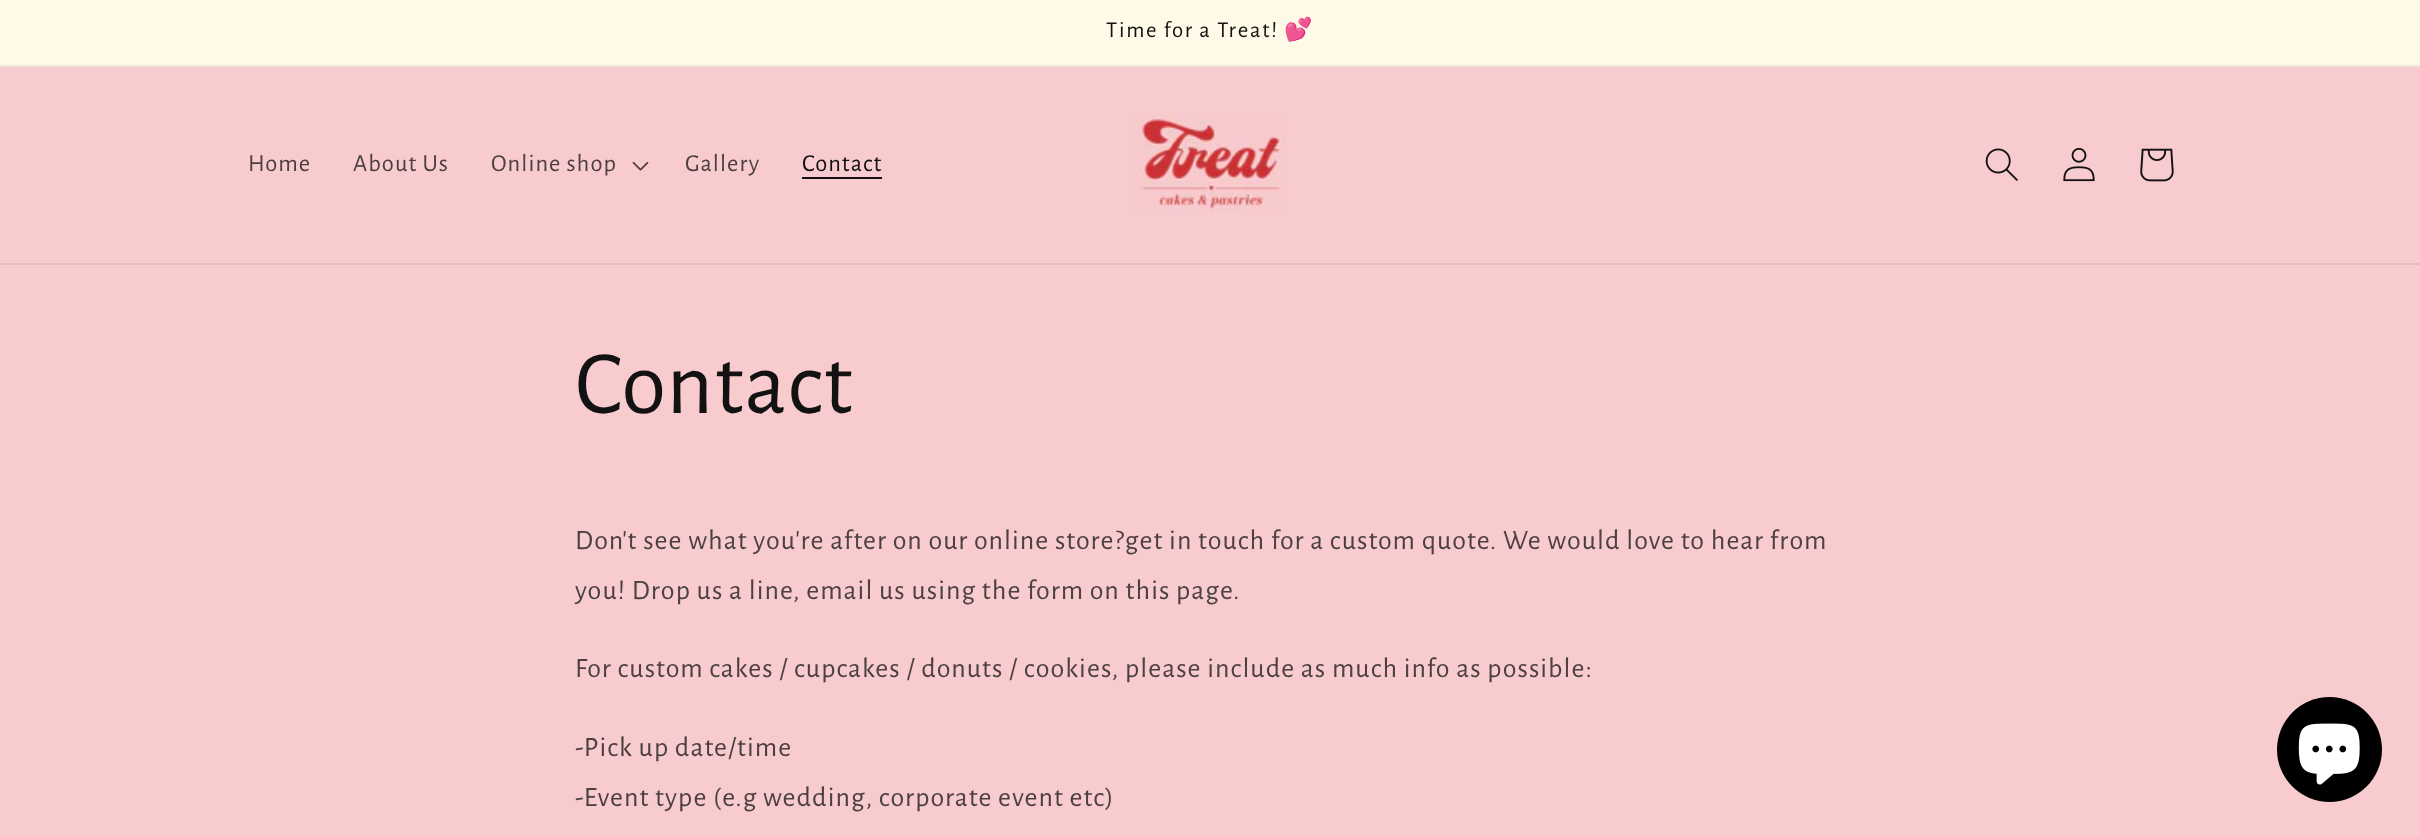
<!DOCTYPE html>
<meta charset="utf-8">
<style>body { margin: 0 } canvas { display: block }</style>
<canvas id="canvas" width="2420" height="837"></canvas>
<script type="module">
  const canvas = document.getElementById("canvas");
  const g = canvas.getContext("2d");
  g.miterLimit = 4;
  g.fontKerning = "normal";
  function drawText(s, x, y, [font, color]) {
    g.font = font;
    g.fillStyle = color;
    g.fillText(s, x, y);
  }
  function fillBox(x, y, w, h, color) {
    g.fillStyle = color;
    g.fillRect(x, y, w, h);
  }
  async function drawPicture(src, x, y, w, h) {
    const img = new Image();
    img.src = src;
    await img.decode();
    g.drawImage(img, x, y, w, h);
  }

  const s1 = ["22.75px Alegreya Sans", "#121212"];
  const s2 = ["22.75px Noto Color Emoji", "#121212"];
  const s3 = ["24.5px Alegreya Sans", "#4C4041"];
  const s4 = ["24.5px Alegreya Sans", "#121212"];
  const s5 = ["91px Alegreya Sans", "#121212"];
  const s6 = ["28px Alegreya Sans", "#4C4041"];

  fillBox(0, 0, 2420, 837, "#F8CBCE");
  fillBox(0, 0, 2420, 65, "#FFF9E7");
  fillBox(0, 65, 2420, 2, "#ECE7D6");
  g.letterSpacing = "1.75px";
  drawText("Time for a Treat!", 1106, 37, s1);
  drawText("💕", 1284, 37, s2);
  fillBox(0, 263, 2420, 2, "#E6BCBF");
  g.letterSpacing = "1.05px";
  drawText("Home", 248, 171, s3);
  drawText("About Us", 353, 171, s3);
  drawText("Online shop", 491, 171, s3);
  await drawPicture("pic1.png", 632, 161, 17, 10);
  drawText("Gallery", 685, 171, s3);
  drawText("Contact", 802, 171, s4);
  fillBox(802, 177, 80, 2, "#121212");
  await drawPicture("pic2.png", 1132, 114, 154, 98);
  await drawPicture("pic3.png", 1985, 148, 33, 33);
  await drawPicture("pic4.png", 2063, 147, 32, 35);
  await drawPicture("pic5.png", 2140, 148, 34, 34);
  drawText("Contact", 575, 413, s5);
  drawText("Don't see what you're after on our online store?get in touch for a custom quote. We would love to hear from", 575, 549, s6);
  drawText("you! Drop us a line, email us using the form on this page.", 575, 599, s6);
  drawText("For custom cakes / cupcakes / donuts / cookies, please include as much info as possible:", 575, 677, s6);
  drawText("-Pick up date/time", 575, 756, s6);
  drawText("-Event type (e.g wedding, corporate event etc)", 575, 806, s6);
  g.fillStyle = "#000000";
  g.beginPath();
  g.arc(2329.5, 749.5, 52.5, 0, Math.PI * 2);
  g.fill();
  await drawPicture("pic6.png", 2298, 723, 62, 62);
</script>
